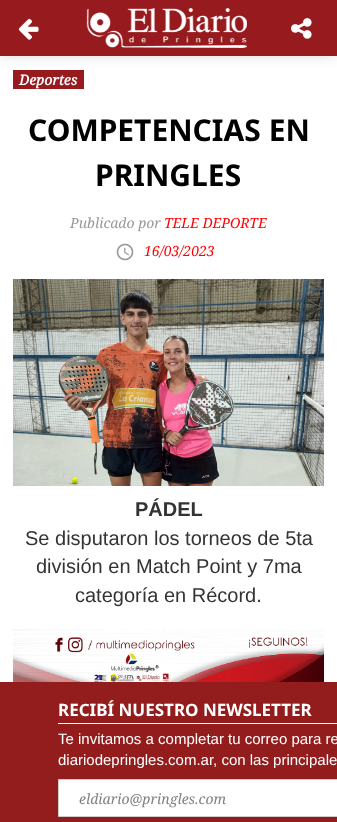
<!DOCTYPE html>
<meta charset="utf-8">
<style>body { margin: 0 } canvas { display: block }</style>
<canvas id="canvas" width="337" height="822"></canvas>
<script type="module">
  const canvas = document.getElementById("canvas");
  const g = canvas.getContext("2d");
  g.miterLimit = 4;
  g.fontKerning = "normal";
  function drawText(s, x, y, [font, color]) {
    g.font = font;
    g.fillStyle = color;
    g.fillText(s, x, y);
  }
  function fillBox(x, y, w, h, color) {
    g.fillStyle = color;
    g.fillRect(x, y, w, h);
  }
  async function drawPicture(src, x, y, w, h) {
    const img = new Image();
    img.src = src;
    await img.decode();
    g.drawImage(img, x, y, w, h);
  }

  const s1 = ["italic bold 14px Noto Serif", "#FFFFFF"];
  const s2 = ["bold 30px Noto Sans", "#000000"];
  const s3 = ["italic 14px Noto Serif", "#999999"];
  const s4 = ["italic 14px Noto Serif", "#FF0000"];
  const s5 = ["bold 20px Liberation Sans", "#333333"];
  const s6 = ["20px Liberation Sans", "#333333"];
  const s7 = ["bold 17px Noto Sans", "#FFFFFF"];
  const s8 = ["15px Liberation Sans", "#FFFFFF"];
  const s9 = ["italic 14px Noto Serif", "#808080"];

  fillBox(0, 0, 337, 822, "#FFFFFF");
  fillBox(13, 70, 71, 19, "#971B1E");
  g.fillStyle = "rgba(0, 0, 0, 0.17)";
  g.filter = "blur(6.5px)";
  g.beginPath();
  g.rect(1, 1, 335, 54);
  g.fill();
  g.filter = "none";
  fillBox(0, 0, 337, 56, "#971B1E");
  await drawPicture("pic1.png", 18, 18, 21, 22);
  await drawPicture("pic2.png", 86, 8, 161, 40);
  await drawPicture("pic3.png", 291, 18, 21, 21);
  drawText("Deportes", 19, 85, s1);
  drawText("COMPETENCIAS EN", 28, 141, s2);
  drawText("PRINGLES", 95, 186, s2);
  drawText("Publicado por", 70, 228, s3);
  drawText("TELE DEPORTE", 164, 228, s4);
  await drawPicture("pic4.png", 116, 243, 18, 18);
  drawText("16/03/2023", 144, 256, s4);
  await drawPicture("pic5.png", 13, 279, 311, 207);
  drawText("PÁDEL", 135, 516, s5);
  drawText("Se disputaron los torneos de 5ta", 25, 545, s6);
  drawText("división en Match Point y 7ma", 36, 573, s6);
  drawText("categoría en Récord.", 75, 602, s6);
  await drawPicture("pic6.png", 13, 629, 311, 53);
  fillBox(0, 682, 337, 140, "#931D1D");
  fillBox(58, 723, 279, 1, "#FFFFFF");
  drawText("RECIBÍ NUESTRO NEWSLETTER", 58, 716, s7);
  drawText("Te invitamos a completar tu correo para re", 58, 744, s8);
  drawText("diariodepringles.com.ar, con las principale", 58, 765, s8);
  g.beginPath();
  g.rect(58.5, 779.5, 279, 37);
  g.fill();
  g.strokeStyle = "#CCCCCC";
  g.stroke();
  drawText("eldiario@pringles.com", 79, 804, s9);
</script>
